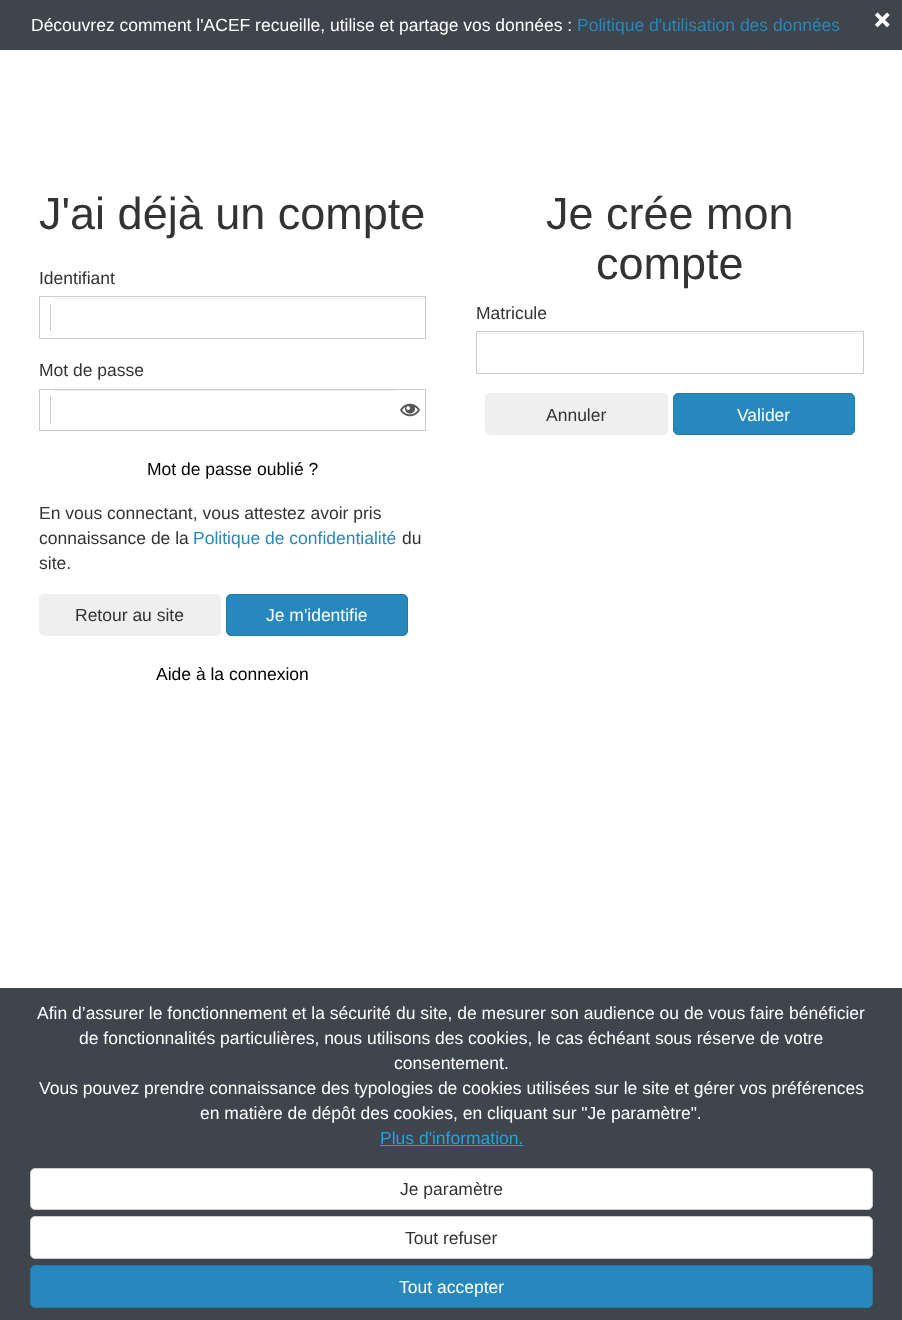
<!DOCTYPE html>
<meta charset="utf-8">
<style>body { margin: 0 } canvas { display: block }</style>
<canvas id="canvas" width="902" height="1320"></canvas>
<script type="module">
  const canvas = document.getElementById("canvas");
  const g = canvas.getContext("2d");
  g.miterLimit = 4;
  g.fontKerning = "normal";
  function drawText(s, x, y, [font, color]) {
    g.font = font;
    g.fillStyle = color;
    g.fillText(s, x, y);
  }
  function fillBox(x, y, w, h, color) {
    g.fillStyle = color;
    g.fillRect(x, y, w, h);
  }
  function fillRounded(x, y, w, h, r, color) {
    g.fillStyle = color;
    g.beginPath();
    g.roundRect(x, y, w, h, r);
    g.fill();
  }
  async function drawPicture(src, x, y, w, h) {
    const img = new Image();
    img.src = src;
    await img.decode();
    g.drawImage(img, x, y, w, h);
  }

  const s1 = ["17.5px Liberation Sans", "#FFFFFF"];
  const s2 = ["17.5px Liberation Sans", "#2788BD"];
  const s3 = ["45px Liberation Sans", "#333333"];
  const s4 = ["17.5px Liberation Sans", "#333333"];
  const s5 = ["17.5px Liberation Sans", "#000000"];
  const s6 = ["17.5px Liberation Sans", "#20A3E3"];

  fillBox(0, 0, 902, 1320, "#FFFFFF");
  fillBox(0, 0, 902, 50, "#3E454D");
  drawText("Découvrez comment l'ACEF recueille, utilise et partage vos données :", 31, 31, s1);
  drawText("Politique d'utilisation des données", 577, 31, s2);
  await drawPicture("pic1.png", 875, 12, 15, 16);
  drawText("J'ai déjà un compte", 39, 229, s3);
  drawText("Identifiant", 39, 284, s4);
  fillBox(39, 296, 387, 1, "#CCCCCC");
  fillBox(39, 338, 15, 1, "#CCCCCC");
  fillBox(39, 296, 1, 43, "#CCCCCC");
  fillBox(50, 304, 1, 27, "#CCCCCC");
  fillBox(54, 298, 371, 1, "#ECECEC");
  fillBox(425, 296, 1, 43, "#CCCCCC");
  fillBox(54, 338, 372, 1, "#CCCCCC");
  drawText("Mot de passe", 39, 376, s4);
  fillBox(39, 389, 15, 1, "#CCCCCC");
  fillBox(39, 430, 15, 1, "#CCCCCC");
  fillBox(39, 389, 1, 42, "#CCCCCC");
  fillBox(54, 389, 372, 1, "#CCCCCC");
  fillBox(425, 389, 1, 42, "#CCCCCC");
  fillBox(54, 430, 372, 1, "#CCCCCC");
  await drawPicture("pic2.png", 400, 403, 20, 14);
  fillBox(54, 390, 341, 1, "#ECECEC");
  fillBox(50, 396, 1, 28, "#CCCCCC");
  drawText("Mot de passe oublié ?", 147, 475, s5);
  drawText("En vous connectant, vous attestez avoir pris", 39, 519, s4);
  drawText("connaissance de la", 39, 544, s4);
  drawText("Politique de confidentialité", 193, 544, s2);
  drawText("du", 402, 544, s4);
  drawText("site.", 39, 569, s4);
  fillRounded(39, 594, 182, 42, 5, "#EFEFEF");
  drawText("Retour au site", 75, 621, s4);
  g.fillStyle = "#2788BD";
  g.beginPath();
  g.roundRect(226.5, 594.5, 181, 41, 4.5);
  g.fill();
  g.strokeStyle = "#2379A8";
  g.stroke();
  drawText("Je m'identifie", 266, 621, s1);
  drawText("Aide à la connexion", 156, 680, s5);
  drawText("Je crée mon", 546, 229, s3);
  drawText("compte", 596, 279, s3);
  drawText("Matricule", 476, 319, s4);
  fillBox(478, 333, 385, 1, "#ECECEC");
  g.strokeStyle = "#CCCCCC";
  g.strokeRect(476.5, 331.5, 387, 42);
  fillRounded(485, 393, 183, 42, 5, "#EFEFEF");
  drawText("Annuler", 546, 421, s4);
  g.fillStyle = "#2788BD";
  g.beginPath();
  g.roundRect(673.5, 393.5, 181, 41, 4.5);
  g.fill();
  g.strokeStyle = "#2379A8";
  g.stroke();
  drawText("Valider", 737, 421, s1);
  fillBox(0, 988, 902, 332, "#3E454D");
  drawText("Afin d’assurer le fonctionnement et la sécurité du site, de mesurer son audience ou de vous faire bénéficier", 37, 1019, s1);
  drawText("de fonctionnalités particulières, nous utilisons des cookies, le cas échéant sous réserve de votre", 79, 1044, s1);
  drawText("consentement.", 394, 1069, s1);
  drawText("Vous pouvez prendre connaissance des typologies de cookies utilisées sur le site et gérer vos préférences", 39, 1094, s1);
  drawText("en matière de dépôt des cookies, en cliquant sur \"Je paramètre\".", 200, 1119, s1);
  drawText("Plus d'information.", 380, 1144, s6);
  fillBox(380, 1145, 143, 1, "#20A3E3");
  g.fillStyle = "#FFFFFF";
  g.beginPath();
  g.roundRect(30.5, 1168.5, 842, 41, 4.5);
  g.fill();
  g.strokeStyle = "#CCCCCC";
  g.stroke();
  drawText("Je paramètre", 400, 1195, s4);
  g.fillStyle = "#FFFFFF";
  g.beginPath();
  g.roundRect(30.5, 1216.5, 842, 42, 4.5);
  g.fill();
  g.stroke();
  drawText("Tout refuser", 405, 1244, s4);
  g.fillStyle = "#2788BD";
  g.beginPath();
  g.roundRect(30.5, 1265.5, 842, 42, 4.5);
  g.fill();
  g.strokeStyle = "#2379A8";
  g.stroke();
  drawText("Tout accepter", 399, 1293, s1);
</script>
